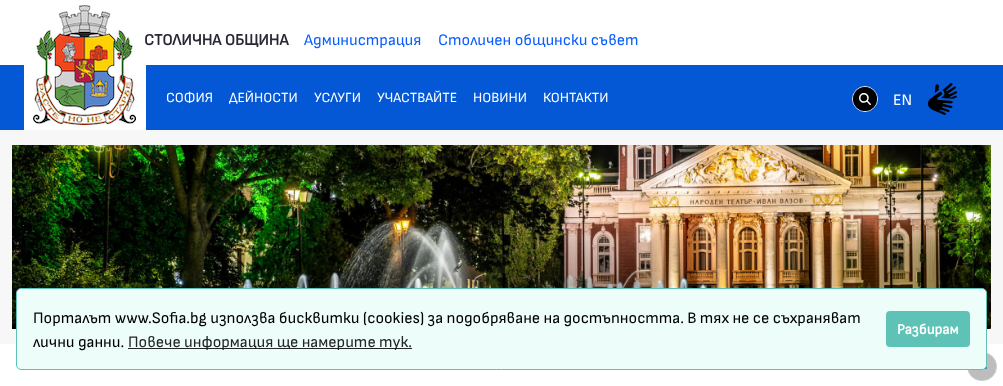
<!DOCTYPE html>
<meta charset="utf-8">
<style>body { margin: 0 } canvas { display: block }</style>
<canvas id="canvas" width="1003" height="386"></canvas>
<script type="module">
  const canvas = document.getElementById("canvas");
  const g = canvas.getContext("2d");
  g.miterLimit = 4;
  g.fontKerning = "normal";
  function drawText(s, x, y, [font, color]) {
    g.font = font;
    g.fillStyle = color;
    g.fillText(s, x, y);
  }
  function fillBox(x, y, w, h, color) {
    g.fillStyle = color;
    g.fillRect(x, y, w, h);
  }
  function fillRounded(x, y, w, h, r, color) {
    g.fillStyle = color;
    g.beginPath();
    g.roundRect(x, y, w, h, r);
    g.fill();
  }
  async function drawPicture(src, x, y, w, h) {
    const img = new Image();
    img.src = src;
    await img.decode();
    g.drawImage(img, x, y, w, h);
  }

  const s1 = ["bold 16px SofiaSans", "#272833"];
  const s2 = ["16px SofiaSans", "#0B5FFF"];
  const s3 = ["16px SofiaSans", "#FFFFFF"];
  const s4 = ["14px SofiaSans", "#FFFFFF"];
  const s5 = ["16px SofiaSans", "#000000"];
  const s6 = ["16px SofiaSans", "#242626"];
  const s7 = ["bold 14.5px SofiaSans", "#FFFFFF"];

  fillBox(0, 0, 1003, 386, "#FFFFFF");
  fillBox(0, 65, 1003, 65, "#0458D5");
  await drawPicture("pic1.png", 24, 5, 122, 125);
  drawText("СТОЛИЧНА ОБЩИНА", 144, 45, s1);
  drawText("Администрация", 304, 45, s2);
  drawText("Столичен общински съвет", 438, 45, s2);
  g.beginPath();
  g.arc(865, 99, 12.5, 0, Math.PI * 2);
  g.strokeStyle = "#E7E7ED";
  g.stroke();
  g.fillStyle = "#000000";
  g.beginPath();
  g.arc(865, 99, 12, 0, Math.PI * 2);
  g.fill();
  await drawPicture("pic2.png", 859, 93, 12, 12);
  drawText("EN", 893, 105, s3);
  await drawPicture("pic3.png", 928, 83, 29, 32);
  drawText("СОФИЯ", 166, 102, s4);
  drawText("ДЕЙНОСТИ", 229, 102, s4);
  drawText("УСЛУГИ", 314, 102, s4);
  drawText("УЧАСТВАЙТЕ", 377, 102, s4);
  drawText("НОВИНИ", 473, 102, s4);
  drawText("КОНТАКТИ", 543, 102, s4);
  fillBox(0, 130, 1003, 214, "#F7F7F8");
  await drawPicture("pic4.png", 12, 145, 979, 184);
  g.fillStyle = "#BDBDBD";
  g.beginPath();
  g.roundRect(967.5, 352.5, 29, 28, 14);
  g.fill();
  g.strokeStyle = "#CCCCCC";
  g.stroke();
  await drawPicture("pic5.png", 985, 366, 2, 3);
  g.fillStyle = "#EDFDFA";
  g.beginPath();
  g.roundRect(16.5, 288.5, 970, 81, 4.5);
  g.fill();
  g.strokeStyle = "#5EC2B6";
  g.stroke();
  drawText("Порталът www.Sofia.bg използва бисквитки (cookies) за подобряване на достъпността. В тях не се съхраняват", 33, 323, s5);
  drawText("лични данни.", 33, 347, s5);
  fillBox(128, 348, 284, 1, "#242626");
  drawText("Повече информация ще намерите тук.", 128, 347, s6);
  fillRounded(886, 311, 84, 36, 4, "#5EC2B6");
  drawText("Разбирам", 897, 334, s7);
</script>
